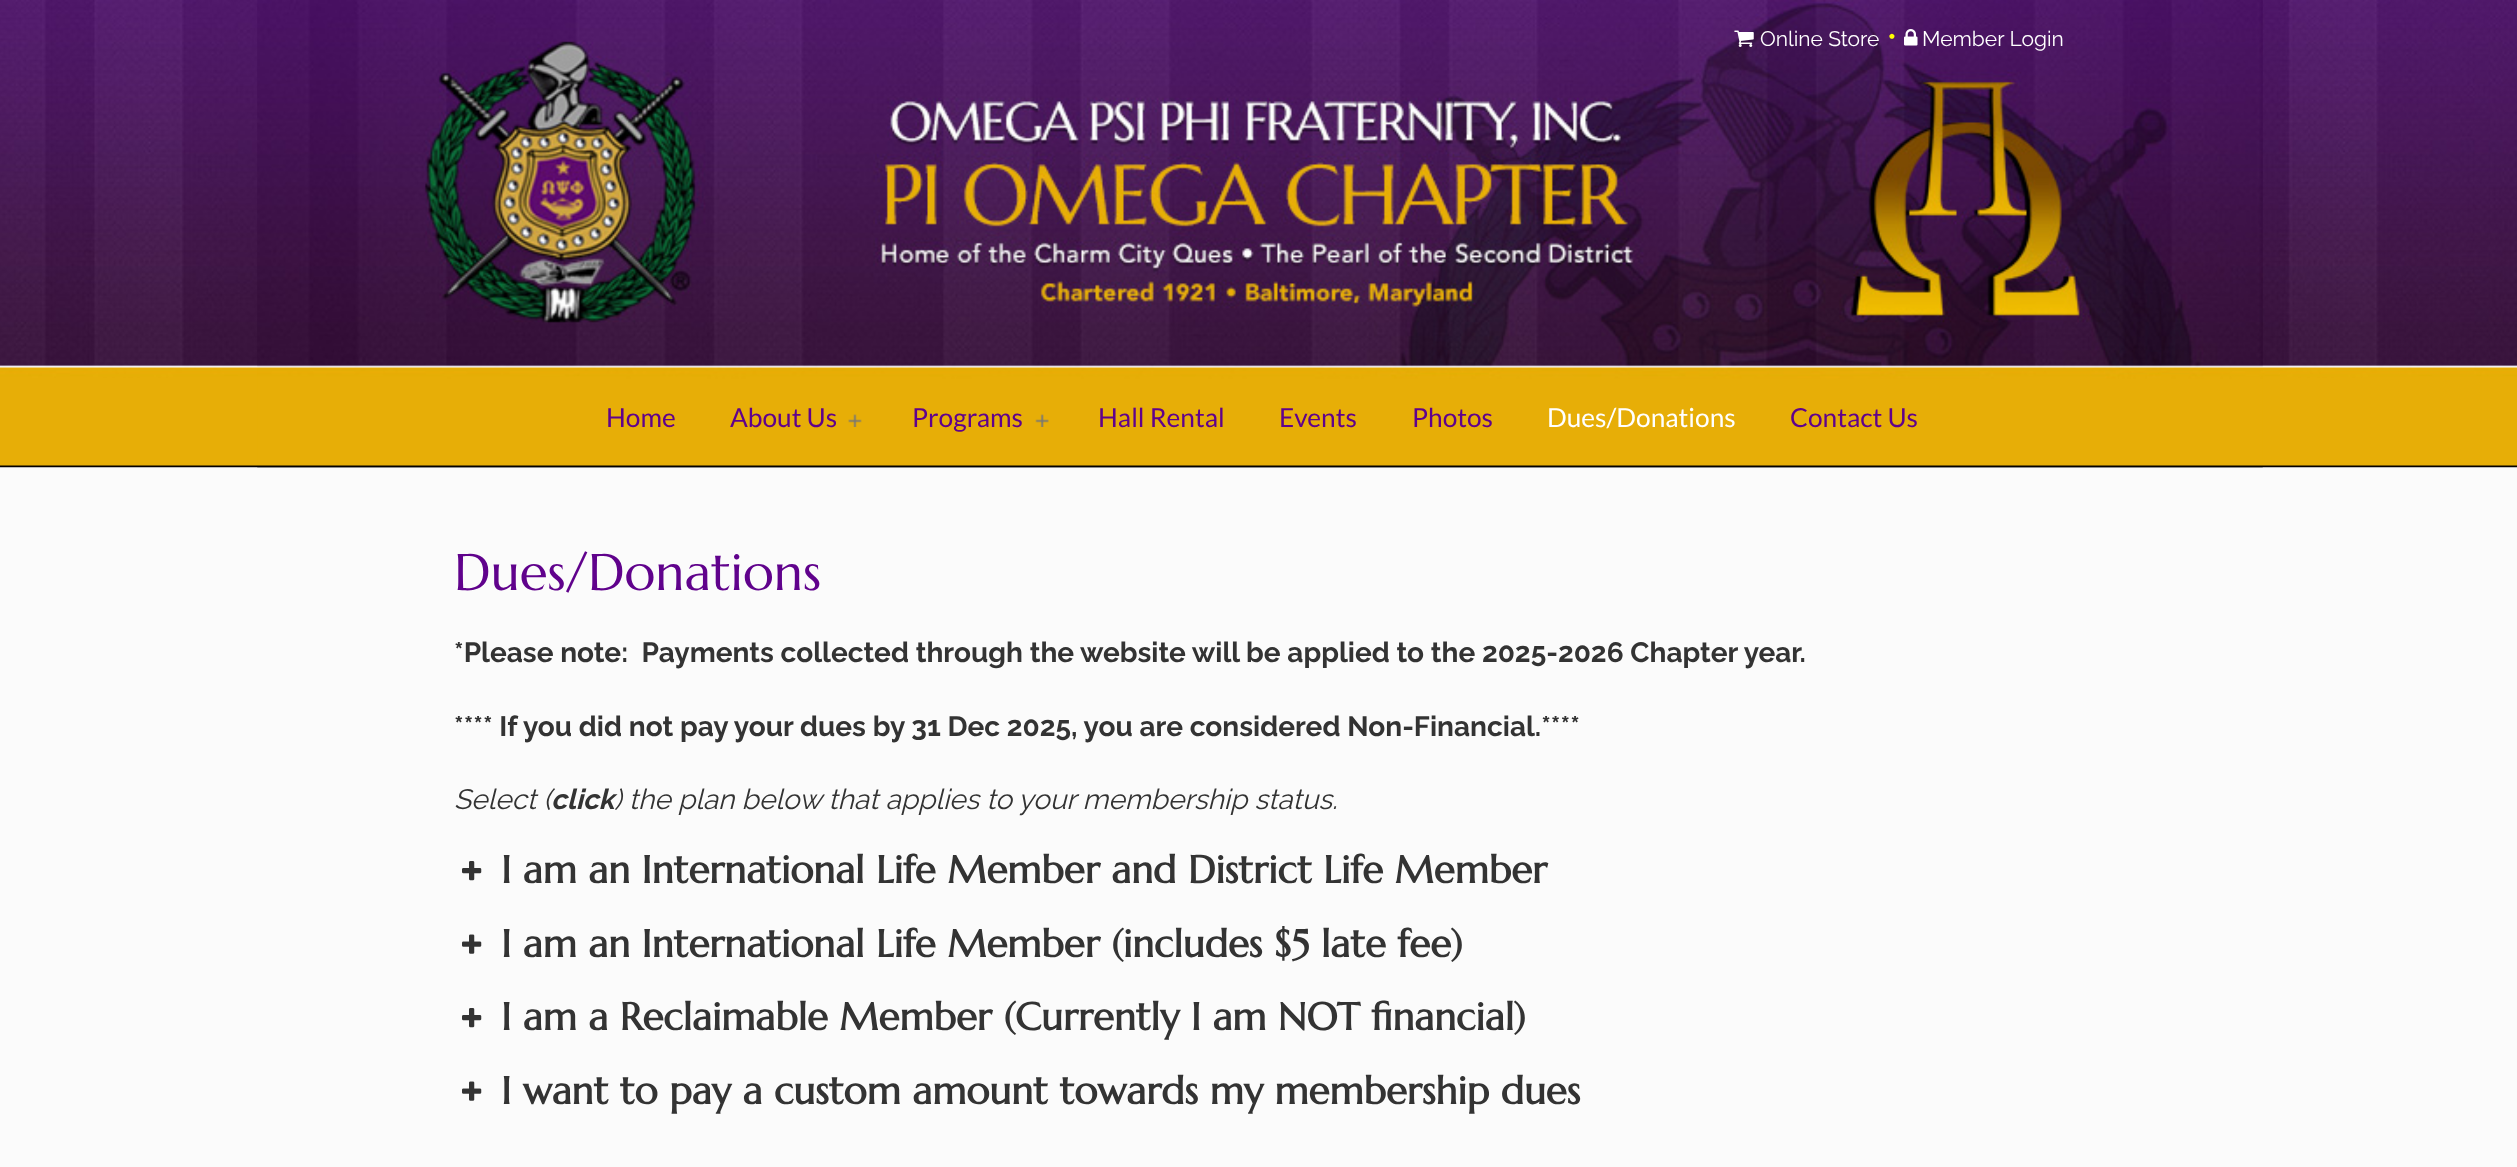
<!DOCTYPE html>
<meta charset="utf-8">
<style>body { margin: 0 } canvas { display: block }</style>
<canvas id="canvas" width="2517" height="1167"></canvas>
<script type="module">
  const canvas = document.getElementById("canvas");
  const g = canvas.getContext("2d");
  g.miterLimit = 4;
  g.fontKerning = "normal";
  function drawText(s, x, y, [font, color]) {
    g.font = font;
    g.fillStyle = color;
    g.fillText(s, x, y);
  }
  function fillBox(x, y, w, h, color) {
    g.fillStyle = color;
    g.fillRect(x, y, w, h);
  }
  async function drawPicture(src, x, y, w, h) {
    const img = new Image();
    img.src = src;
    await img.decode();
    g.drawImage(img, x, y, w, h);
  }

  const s1 = ["100 21px Raleway", "#FFFFFF"];
  const s2 = ["100 28px Raleway", "#FFFF00"];
  const s3 = ["26.25px Lato", "#60028C"];
  const s4 = ["26.25px Lato", "#FFFFFF"];
  const s5 = ["51.25px Marcellus", "#60028C"];
  const s6 = ["bold 28px Raleway", "#333333"];
  const s7 = ["italic 100 28px Raleway", "#333333"];
  const s8 = ["italic bold 28px Raleway", "#333333"];
  const s9 = ["bold 38.5px Marcellus", "#333333"];

  fillBox(0, 0, 2517, 1167, "#FBFBFB");
  await drawPicture("pic1.png", 0, 0, 2517, 468);
  await drawPicture("pic2.png", 257, 0, 2006, 468);
  await drawPicture("pic3.png", 1734, 30, 20, 17);
  drawText("Online Store", 1760, 46, s1);
  drawText("•", 1887, 46, s2);
  await drawPicture("pic4.png", 1904, 29, 14, 17);
  drawText("Member Login", 1922, 46, s1);
  drawText("Home", 606, 427, s3);
  drawText("About Us", 730, 427, s3);
  await drawPicture("pic5.png", 848, 414, 14, 13);
  drawText("Programs", 912, 427, s3);
  await drawPicture("pic6.png", 1035, 414, 14, 13);
  drawText("Hall Rental", 1098, 427, s3);
  drawText("Events", 1279, 427, s3);
  drawText("Photos", 1412, 427, s3);
  drawText("Dues/Donations", 1547, 427, s4);
  drawText("Contact Us", 1790, 427, s3);
  drawText("Dues/Donations", 454, 590, s5);
  drawText("*Please note:  Payments collected through the website will be applied to the 2025-2026 Chapter year.", 454, 662, s6);
  drawText("**** If you did not pay your dues by 31 Dec 2025, you are considered Non-Financial.****", 454, 736, s6);
  drawText("Select (", 454, 809, s7);
  drawText("click", 551, 809, s8);
  drawText(") the plan below that applies to your membership status.", 614, 809, s7);
  await drawPicture("pic7.png", 462, 861, 20, 20);
  drawText("I am an International Life Member and District Life Member", 501, 883, s9);
  await drawPicture("pic8.png", 462, 934, 20, 20);
  drawText("I am an International Life Member (includes $5 late fee)", 501, 957, s9);
  await drawPicture("pic7.png", 462, 1008, 20, 20);
  drawText("I am a Reclaimable Member (Currently I am NOT financial)", 501, 1030, s9);
  await drawPicture("pic8.png", 462, 1081, 20, 20);
  drawText("I want to pay a custom amount towards my membership dues", 501, 1104, s9);
</script>
